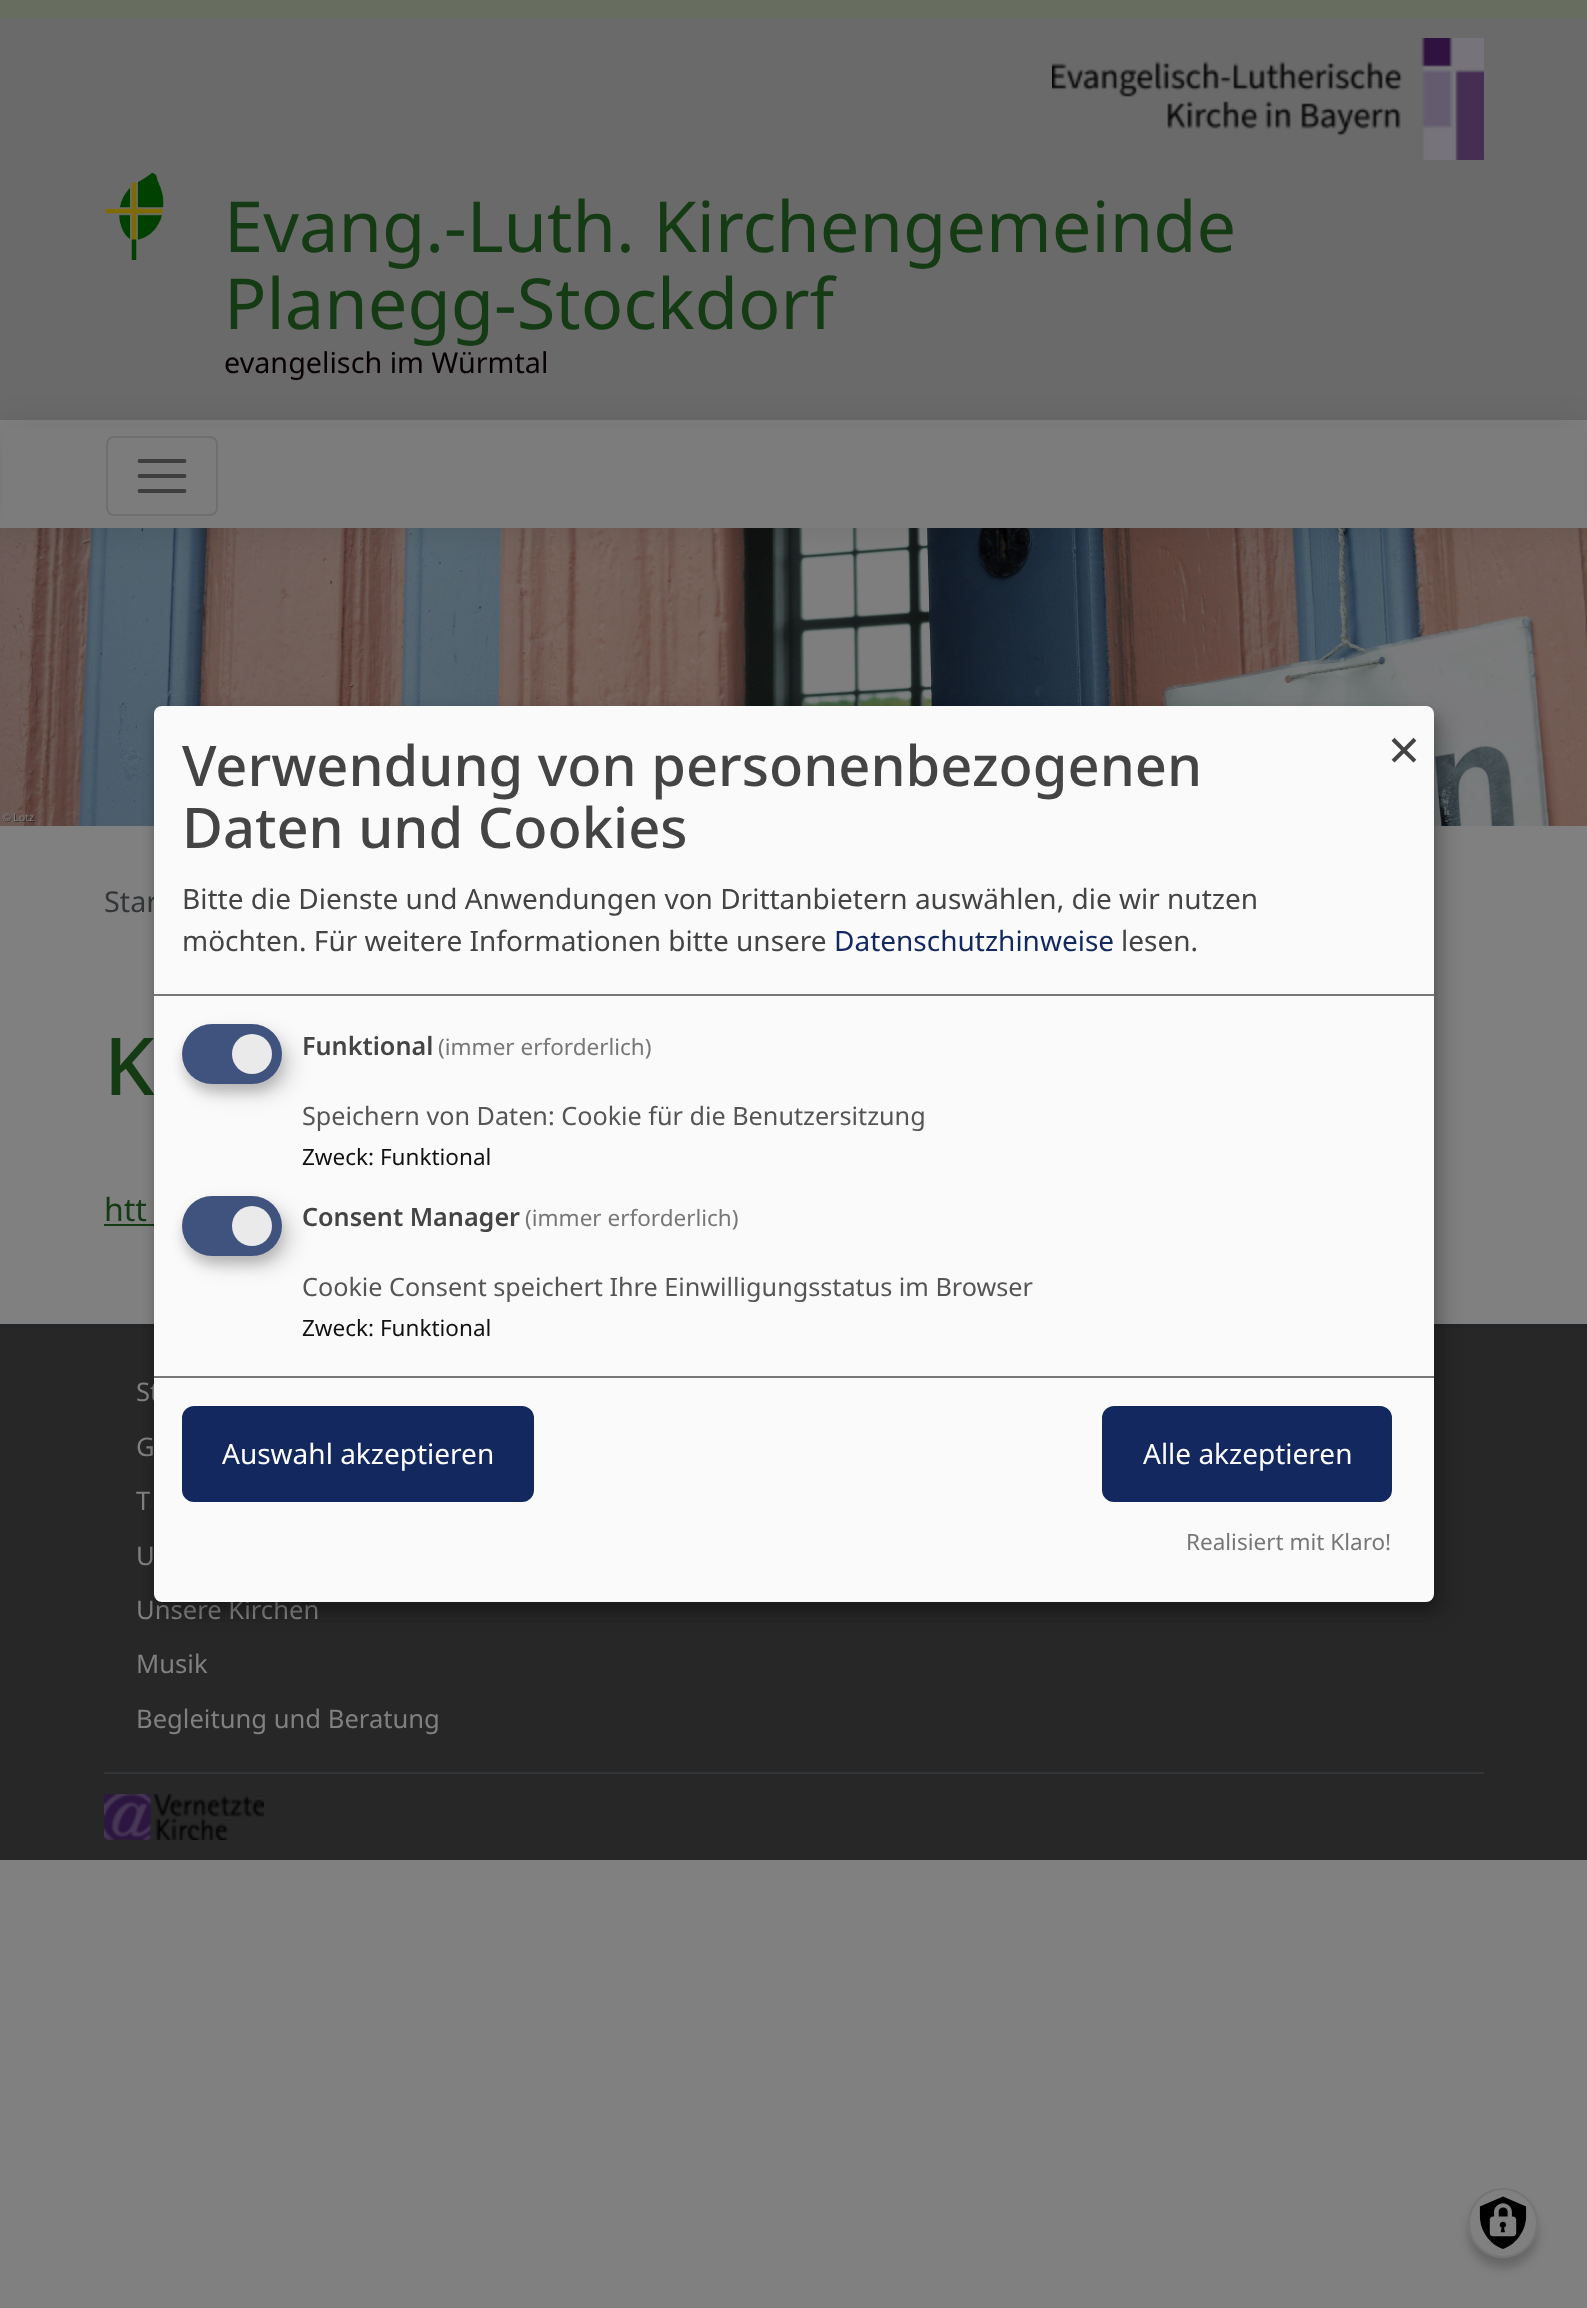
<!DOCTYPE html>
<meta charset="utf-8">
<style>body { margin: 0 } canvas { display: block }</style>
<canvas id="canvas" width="1587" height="2308"></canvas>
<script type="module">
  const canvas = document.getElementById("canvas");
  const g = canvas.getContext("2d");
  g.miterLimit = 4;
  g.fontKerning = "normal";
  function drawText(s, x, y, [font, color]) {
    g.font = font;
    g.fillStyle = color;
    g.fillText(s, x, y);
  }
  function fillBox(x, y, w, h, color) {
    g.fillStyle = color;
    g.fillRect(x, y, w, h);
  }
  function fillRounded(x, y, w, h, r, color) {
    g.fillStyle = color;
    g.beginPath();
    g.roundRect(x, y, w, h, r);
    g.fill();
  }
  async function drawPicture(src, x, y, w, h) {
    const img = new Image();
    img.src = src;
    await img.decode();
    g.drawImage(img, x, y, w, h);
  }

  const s1 = ["70.4px Noto Sans", "#143B13"];
  const s2 = ["28.75px Noto Sans", "#070102"];
  const s3 = ["28.75px Noto Sans", "#323639"];
  const s4 = ["500 80px Noto Sans", "#143B13"];
  const s5 = ["32px Noto Sans", "#143B13"];
  const s6 = ["25.6px Noto Sans", "#808080"];
  const s7 = ["500 56px Noto Sans", "#444444"];
  const s8 = ["28px Noto Sans", "#444444"];
  const s9 = ["28px Noto Sans", "#12285F"];
  const s10 = ["56px Noto Sans", "#444444"];
  const s11 = ["600 25.2px Noto Sans", "#444444"];
  const s12 = ["22.5px Noto Sans", "#777777"];
  const s13 = ["25.2px Noto Sans", "#555555"];
  const s14 = ["22.5px Noto Sans", "#111111"];
  const s15 = ["28px Noto Sans", "#FFFFFF"];

  fillBox(0, 0, 1587, 2308, "#808080");
  fillBox(0, 0, 1587, 18, "#676D5F");
  fillBox(0, 18, 1587, 402, "#6B6A6A");
  await drawPicture("pic1.png", 1052, 38, 432, 122);
  await drawPicture("pic2.png", 105, 172, 59, 88);
  drawText("Evang.-Luth. Kirchengemeinde", 224, 252, s1);
  drawText("Planegg-Stockdorf", 224, 329, s1);
  drawText("evangelisch im Würmtal", 224, 373, s2);
  await drawPicture("pic3.png", 0, 528, 1587, 298);
  g.fillStyle = "rgba(0, 0, 0, 0.09)";
  g.filter = "blur(15px)";
  g.beginPath();
  g.rect(0, 424, 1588, 108);
  g.fill();
  g.filter = "none";
  fillBox(3, 427, 1582, 101, "#7C7C7C");
  g.beginPath();
  g.roundRect(107, 437, 110, 78, 7);
  g.strokeStyle = "#6F6F6F";
  g.lineWidth = 2;
  g.stroke();
  g.beginPath();
  g.moveTo(139.5, 461);
  g.lineTo(184.5, 461);
  g.moveTo(139.5, 476);
  g.lineTo(184.5, 476);
  g.moveTo(139.5, 491);
  g.lineTo(184.5, 491);
  g.strokeStyle = "#3E3E3E";
  g.lineWidth = 3.8;
  g.lineCap = "round";
  g.stroke();
  drawText("Star", 104, 912, s3);
  drawText("K", 104, 1095, s4);
  drawText("htt", 104, 1221, s5);
  fillBox(104, 1224, 50, 2, "#143B13");
  fillBox(0, 1328, 1587, 532, "#272727");
  fillBox(0, 1324, 1587, 4, "#232526");
  drawText("St", 136, 1401, s6);
  drawText("G", 136, 1456, s6);
  drawText("T", 136, 1510, s6);
  drawText("U", 136, 1565, s6);
  drawText("Unsere Kirchen", 136, 1619, s6);
  drawText("Musik", 136, 1673, s6);
  drawText("Begleitung und Beratung", 136, 1728, s6);
  fillBox(104, 1772, 1380, 2, "#323639");
  await drawPicture("pic4.png", 104, 1794, 160, 46);
  g.fillStyle = "rgba(0, 0, 0, 0.19)";
  g.filter = "blur(10px)";
  g.beginPath();
  g.roundRect(164, 716, 1280, 896, 8);
  g.fill();
  g.filter = "none";
  g.fillStyle = "rgba(0, 0, 0, 0.2)";
  g.filter = "blur(6px)";
  g.beginPath();
  g.roundRect(154, 714, 1280, 896, 8);
  g.fill();
  g.filter = "none";
  fillRounded(154, 706, 1280, 896, 8, "#FAFAFA");
  fillBox(154, 994, 1280, 2, "#777777");
  drawText("Verwendung von personenbezogenen", 182, 786, s7);
  drawText("Daten und Cookies", 182, 848, s7);
  drawText("Bitte die Dienste und Anwendungen von Drittanbietern auswählen, die wir nutzen", 182, 909, s8);
  drawText("möchten. Für weitere Informationen bitte unsere", 182, 951, s8);
  drawText("Datenschutzhinweise", 834, 951, s9);
  drawText("lesen.", 1121, 951, s8);
  drawText("×", 1388, 770, s10);
  g.fillStyle = "rgba(0, 0, 0, 0.15)";
  g.filter = "blur(10px)";
  g.beginPath();
  g.roundRect(192, 1034, 100, 60, 30);
  g.fill();
  g.filter = "none";
  g.fillStyle = "rgba(50, 50, 50, 0.2)";
  g.filter = "blur(6px)";
  g.beginPath();
  g.roundRect(182, 1032, 100, 60, 30);
  g.fill();
  g.filter = "none";
  fillRounded(182, 1024, 100, 60, 30, "#40527E");
  g.fillStyle = "#EAEAEA";
  g.beginPath();
  g.arc(252, 1054, 20, 0, Math.PI * 2);
  g.fill();
  drawText("Funktional", 302, 1055, s11);
  drawText("(immer erforderlich)", 438, 1055, s12);
  drawText("Speichern von Daten: Cookie für die Benutzersitzung", 302, 1125, s13);
  drawText("Zweck: Funktional", 302, 1165, s14);
  g.fillStyle = "rgba(0, 0, 0, 0.15)";
  g.filter = "blur(10px)";
  g.beginPath();
  g.roundRect(192, 1206, 100, 60, 30);
  g.fill();
  g.filter = "none";
  g.fillStyle = "rgba(50, 50, 50, 0.2)";
  g.filter = "blur(6px)";
  g.beginPath();
  g.roundRect(182, 1204, 100, 60, 30);
  g.fill();
  g.filter = "none";
  fillRounded(182, 1196, 100, 60, 30, "#40527E");
  g.fillStyle = "#EAEAEA";
  g.beginPath();
  g.arc(252, 1226, 20, 0, Math.PI * 2);
  g.fill();
  drawText("Consent Manager", 302, 1226, s11);
  drawText("(immer erforderlich)", 525, 1226, s12);
  drawText("Cookie Consent speichert Ihre Einwilligungsstatus im Browser", 302, 1296, s13);
  drawText("Zweck: Funktional", 302, 1336, s14);
  fillBox(154, 1376, 1280, 2, "#777777");
  g.fillStyle = "#12285F";
  g.beginPath();
  g.roundRect(185, 1409, 346, 90, 9);
  g.fill();
  g.strokeStyle = "#12285F";
  g.lineWidth = 6;
  g.stroke();
  drawText("Auswahl akzeptieren", 222, 1464, s15);
  g.fillStyle = "#12285F";
  g.beginPath();
  g.roundRect(1105, 1409, 284, 90, 9);
  g.fill();
  g.stroke();
  drawText("Alle akzeptieren", 1143, 1464, s15);
  drawText("Realisiert mit Klaro!", 1186, 1550, s12);
  g.fillStyle = "rgba(0, 0, 0, 0.2)";
  g.filter = "blur(5px)";
  g.beginPath();
  g.roundRect(1468, 2198, 70, 70, 35);
  g.fill();
  g.filter = "none";
  g.fillStyle = "#808080";
  g.beginPath();
  g.arc(1503, 2223, 35, 0, Math.PI * 2);
  g.fill();
  await drawPicture("pic5.png", 1479, 2196, 48, 53);
  g.beginPath();
  g.arc(1503, 2223, 34, 0, Math.PI * 2);
  g.strokeStyle = "#757575";
  g.lineWidth = 2;
  g.stroke();
</script>
